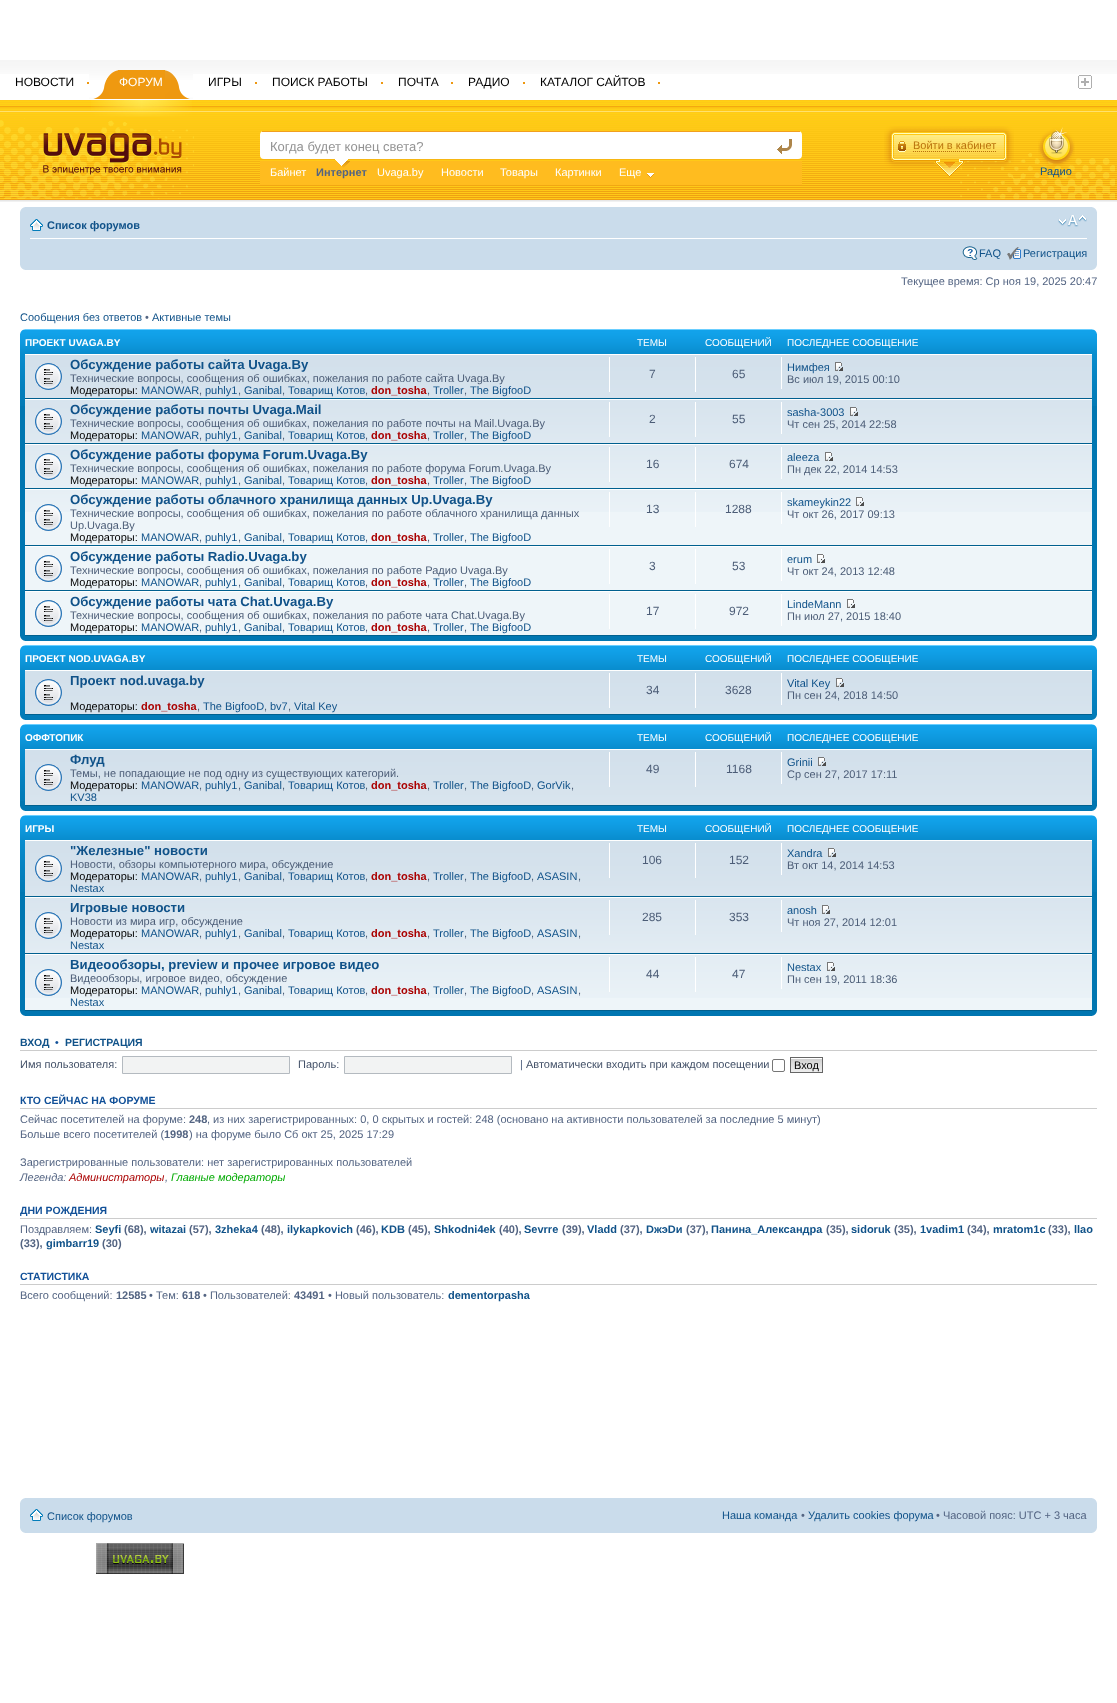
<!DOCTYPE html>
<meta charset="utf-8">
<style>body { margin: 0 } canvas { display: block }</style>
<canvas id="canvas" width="1117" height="1703"></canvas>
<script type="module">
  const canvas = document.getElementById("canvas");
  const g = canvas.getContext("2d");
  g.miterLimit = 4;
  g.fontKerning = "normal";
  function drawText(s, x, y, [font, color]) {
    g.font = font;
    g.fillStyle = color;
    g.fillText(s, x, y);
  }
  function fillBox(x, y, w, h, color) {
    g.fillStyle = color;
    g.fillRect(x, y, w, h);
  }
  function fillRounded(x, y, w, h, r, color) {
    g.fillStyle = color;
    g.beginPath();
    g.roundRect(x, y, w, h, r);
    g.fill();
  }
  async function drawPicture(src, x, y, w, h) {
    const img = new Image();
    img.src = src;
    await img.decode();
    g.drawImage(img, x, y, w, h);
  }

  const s1 = ["12px Liberation Sans", "#000000"];
  const s2 = ["12px Liberation Sans", "#FFFFFF"];
  const s3 = ["13px Liberation Sans", "#939393"];
  const s4 = ["11px Liberation Sans", "#FFFFFF"];
  const s5 = ["bold 11px Liberation Sans", "#536482"];
  const s6 = ["11px Liberation Sans", "#BA720C"];
  const s7 = ["11px Liberation Sans", "#105289"];
  const s8 = ["bold 11px Liberation Sans", "#105289"];
  const s9 = ["11px Liberation Sans", "#536482"];
  const s10 = ["bold 10px Liberation Sans", "#FFFFFF"];
  const s11 = ["10px Liberation Sans", "#FFFFFF"];
  const s12 = ["bold 13.2px Liberation Sans", "#105289"];
  const s13 = ["11px Liberation Sans", "#4C5D77"];
  const s14 = ["11px Liberation Sans", "#000000"];
  const s15 = ["bold 11px Liberation Sans", "#AA0000"];
  const s16 = ["12px Liberation Sans", "#4C5D77"];
  const s17 = ["bold 10.5px Liberation Sans", "#105289"];
  const s18 = ["bold 10.5px Liberation Sans", "#115098"];
  const s19 = ["11px Liberation Sans", "#425067"];
  const s20 = ["italic 11px Liberation Sans", "#536482"];
  const s21 = ["italic 11px Liberation Sans", "#AA0000"];
  const s22 = ["italic 11px Liberation Sans", "#00AA00"];

  fillBox(0, 0, 1117, 1703, "#FFFFFF");
  await drawPicture("pic1.png", 0, 60, 1117, 14);
  fillBox(87, 82, 2, 2, "#EE9810");
  drawText("НОВОСТИ", 15, 86, s1);
  fillBox(118, 70, 47, 29, "#EF9910");
  await drawPicture("pic2.png", 89, 70, 29, 29);
  await drawPicture("pic3.png", 165, 70, 28, 29);
  drawText("ФОРУМ", 119, 86, s2);
  await drawPicture("pic6.png", 0, 100, 1117, 102);
  await drawPicture("pic4.png", 91, 100, 101, 17);
  fillBox(255, 82, 2, 2, "#EE9810");
  drawText("ИГРЫ", 208, 86, s1);
  fillBox(381, 82, 2, 2, "#EE9810");
  drawText("ПОИСК РАБОТЫ", 272, 86, s1);
  fillBox(451, 82, 2, 2, "#EE9810");
  drawText("ПОЧТА", 398, 86, s1);
  fillBox(523, 82, 2, 2, "#EE9810");
  drawText("РАДИО", 468, 86, s1);
  fillBox(658, 82, 2, 2, "#EE9810");
  drawText("КАТАЛОГ САЙТОВ", 540, 86, s1);
  await drawPicture("pic5.png", 1078, 75, 14, 14);
  await drawPicture("pic7.png", 0, 118, 194, 81);
  await drawPicture("pic8.png", 960, 151, 155, 48);
  await drawPicture("pic9.png", 43, 133, 139, 42);
  fillRounded(260, 131, 542, 28, 4, "#FFFFFF");
  fillBox(262, 131, 538, 1, "#F1A01F");
  drawText("Когда будет конец света?", 270, 151, s3);
  await drawPicture("pic10.png", 777, 139, 15, 15);
  fillBox(260, 161, 542, 24, "#FFBC1F");
  drawText("Байнет", 270, 176, s4);
  await drawPicture("pic11.png", 335, 159, 15, 9);
  drawText("Интернет", 316, 176, s5);
  drawText("Uvaga.by", 377, 176, s4);
  drawText("Новости", 441, 176, s4);
  drawText("Товары", 500, 176, s4);
  drawText("Картинки", 555, 176, s4);
  await drawPicture("pic12.png", 647, 173, 7, 5);
  drawText("Еще", 619, 176, s4);
  await drawPicture("pic13.png", 884, 126, 130, 51);
  g.beginPath();
  g.moveTo(913, 151.5);
  g.lineTo(996, 151.5);
  g.strokeStyle = "#BA720C";
  g.setLineDash([1, 1]);
  g.stroke();
  drawText("Войти в кабинет", 913, 149, s6);
  await drawPicture("pic14.png", 1038, 127, 37, 40);
  drawText("Радио", 1040, 175, s7);
  fillBox(20, 207, 1077, 63, "#CADCEB");
  await drawPicture("pic15.png", 20, 207, 5, 5);
  await drawPicture("pic16.png", 1092, 207, 5, 5);
  fillBox(30, 238, 1057, 1, "#FFFFFF");
  await drawPicture("pic17.png", 30, 219, 13, 12);
  drawText("Список форумов", 47, 229, s8);
  await drawPicture("pic18.png", 1058, 215, 29, 12);
  await drawPicture("pic19.png", 962, 246, 16, 14);
  drawText("FAQ", 979, 257, s7);
  await drawPicture("pic20.png", 1007, 247, 14, 13);
  drawText("Регистрация", 1023, 257, s7);
  await drawPicture("pic21.png", 20, 265, 5, 5);
  await drawPicture("pic22.png", 1092, 265, 5, 5);
  drawText("Текущее время: Ср ноя 19, 2025 20:47", 901, 285, s9);
  drawText("Сообщения без ответов", 20, 321, s7);
  drawText("•", 145, 321, s9);
  drawText("Активные темы", 152, 321, s7);
  fillBox(20, 406, 1077, 235, "#0076B1");
  await drawPicture("pic23.png", 20, 329, 1077, 77);
  await drawPicture("pic24.png", 20, 329, 5, 5);
  await drawPicture("pic25.png", 1092, 329, 5, 5);
  drawText("ПРОЕКТ UVAGA.BY", 25, 346, s10);
  drawText("ТЕМЫ", 637, 346, s11);
  drawText("СООБЩЕНИЙ", 705, 346, s11);
  drawText("ПОСЛЕДНЕЕ СООБЩЕНИЕ", 787, 346, s11);
  fillBox(25, 512, 1067, 123, "#EEF5F9");
  await drawPicture("pic26.png", 25, 355, 1067, 157);
  fillBox(25, 354, 1067, 1, "#FFFFFF");
  fillBox(25, 398, 1067, 1, "#00608F");
  await drawPicture("pic27.png", 35, 363, 27, 27);
  drawText("Обсуждение работы сайта Uvaga.By", 70, 369, s12);
  drawText("Технические вопросы, сообщения об ошибках, пожелания по работе сайта Uvaga.By", 70, 382, s13);
  drawText("Модераторы:", 70, 394, s14);
  drawText("MANOWAR", 141, 394, s7);
  drawText(",", 199, 394, s13);
  drawText("puhly1", 205, 394, s7);
  drawText(",", 238, 394, s13);
  drawText("Ganibal", 244, 394, s7);
  drawText(",", 282, 394, s13);
  drawText("Товарищ Котов", 288, 394, s7);
  drawText(",", 365, 394, s13);
  drawText("don_tosha", 371, 394, s15);
  drawText(",", 427, 394, s13);
  drawText("Troller", 433, 394, s7);
  drawText(",", 464, 394, s13);
  drawText("The BigfooD", 470, 394, s7);
  fillBox(609, 357, 1, 35, "#FFFFFF");
  drawText("7", 649, 378, s16);
  fillBox(695, 357, 1, 35, "#FFFFFF");
  drawText("65", 732, 378, s16);
  fillBox(781, 357, 1, 32, "#FFFFFF");
  drawText("Нимфея", 787, 371, s7);
  await drawPicture("pic28.png", 835, 362, 8, 9);
  drawText("Вс июл 19, 2015 00:10", 787, 383, s13);
  fillBox(25, 399, 1067, 1, "#FFFFFF");
  fillBox(25, 443, 1067, 1, "#00608F");
  await drawPicture("pic29.png", 35, 408, 27, 27);
  drawText("Обсуждение работы почты Uvaga.Mail", 70, 414, s12);
  drawText("Технические вопросы, сообщения об ошибках, пожелания по работе почты на Mail.Uvaga.By", 70, 427, s13);
  drawText("Модераторы:", 70, 439, s14);
  drawText("MANOWAR", 141, 439, s7);
  drawText(",", 199, 439, s13);
  drawText("puhly1", 205, 439, s7);
  drawText(",", 238, 439, s13);
  drawText("Ganibal", 244, 439, s7);
  drawText(",", 282, 439, s13);
  drawText("Товарищ Котов", 288, 439, s7);
  drawText(",", 365, 439, s13);
  drawText("don_tosha", 371, 439, s15);
  drawText(",", 427, 439, s13);
  drawText("Troller", 433, 439, s7);
  drawText(",", 464, 439, s13);
  drawText("The BigfooD", 470, 439, s7);
  fillBox(609, 402, 1, 35, "#FFFFFF");
  drawText("2", 649, 423, s16);
  fillBox(695, 402, 1, 35, "#FFFFFF");
  drawText("55", 732, 423, s16);
  fillBox(781, 402, 1, 32, "#FFFFFF");
  drawText("sasha-3003", 787, 416, s7);
  await drawPicture("pic30.png", 850, 407, 8, 9);
  drawText("Чт сен 25, 2014 22:58", 787, 428, s13);
  fillBox(25, 444, 1067, 1, "#FFFFFF");
  fillBox(25, 488, 1067, 1, "#00608F");
  await drawPicture("pic31.png", 35, 453, 27, 27);
  drawText("Обсуждение работы форума Forum.Uvaga.By", 70, 459, s12);
  drawText("Технические вопросы, сообщения об ошибках, пожелания по работе форума Forum.Uvaga.By", 70, 472, s13);
  drawText("Модераторы:", 70, 484, s14);
  drawText("MANOWAR", 141, 484, s7);
  drawText(",", 199, 484, s13);
  drawText("puhly1", 205, 484, s7);
  drawText(",", 238, 484, s13);
  drawText("Ganibal", 244, 484, s7);
  drawText(",", 282, 484, s13);
  drawText("Товарищ Котов", 288, 484, s7);
  drawText(",", 365, 484, s13);
  drawText("don_tosha", 371, 484, s15);
  drawText(",", 427, 484, s13);
  drawText("Troller", 433, 484, s7);
  drawText(",", 464, 484, s13);
  drawText("The BigfooD", 470, 484, s7);
  fillBox(609, 447, 1, 35, "#FFFFFF");
  drawText("16", 646, 468, s16);
  fillBox(695, 447, 1, 35, "#FFFFFF");
  drawText("674", 729, 468, s16);
  fillBox(781, 447, 1, 32, "#FFFFFF");
  drawText("aleeza", 787, 461, s7);
  await drawPicture("pic32.png", 825, 452, 8, 9);
  drawText("Пн дек 22, 2014 14:53", 787, 473, s13);
  fillBox(25, 489, 1067, 1, "#FFFFFF");
  fillBox(25, 545, 1067, 1, "#00608F");
  await drawPicture("pic33.png", 35, 504, 27, 27);
  drawText("Обсуждение работы облачного хранилища данных Up.Uvaga.By", 70, 504, s12);
  drawText("Технические вопросы, сообщения об ошибках, пожелания по работе облачного хранилища данных", 70, 517, s13);
  drawText("Up.Uvaga.By", 70, 529, s13);
  drawText("Модераторы:", 70, 541, s14);
  drawText("MANOWAR", 141, 541, s7);
  drawText(",", 199, 541, s13);
  drawText("puhly1", 205, 541, s7);
  drawText(",", 238, 541, s13);
  drawText("Ganibal", 244, 541, s7);
  drawText(",", 282, 541, s13);
  drawText("Товарищ Котов", 288, 541, s7);
  drawText(",", 365, 541, s13);
  drawText("don_tosha", 371, 541, s15);
  drawText(",", 427, 541, s13);
  drawText("Troller", 433, 541, s7);
  drawText(",", 464, 541, s13);
  drawText("The BigfooD", 470, 541, s7);
  fillBox(609, 492, 1, 35, "#FFFFFF");
  drawText("13", 646, 513, s16);
  fillBox(695, 492, 1, 35, "#FFFFFF");
  drawText("1288", 725, 513, s16);
  fillBox(781, 492, 1, 32, "#FFFFFF");
  drawText("skameykin22", 787, 506, s7);
  await drawPicture("pic34.png", 856, 497, 8, 9);
  drawText("Чт окт 26, 2017 09:13", 787, 518, s13);
  fillBox(25, 546, 1067, 1, "#FFFFFF");
  fillBox(25, 590, 1067, 1, "#00608F");
  await drawPicture("pic35.png", 35, 555, 27, 27);
  drawText("Обсуждение работы Radio.Uvaga.by", 70, 561, s12);
  drawText("Технические вопросы, сообщения об ошибках, пожелания по работе Радио Uvaga.By", 70, 574, s13);
  drawText("Модераторы:", 70, 586, s14);
  drawText("MANOWAR", 141, 586, s7);
  drawText(",", 199, 586, s13);
  drawText("puhly1", 205, 586, s7);
  drawText(",", 238, 586, s13);
  drawText("Ganibal", 244, 586, s7);
  drawText(",", 282, 586, s13);
  drawText("Товарищ Котов", 288, 586, s7);
  drawText(",", 365, 586, s13);
  drawText("don_tosha", 371, 586, s15);
  drawText(",", 427, 586, s13);
  drawText("Troller", 433, 586, s7);
  drawText(",", 464, 586, s13);
  drawText("The BigfooD", 470, 586, s7);
  fillBox(609, 549, 1, 35, "#FFFFFF");
  drawText("3", 649, 570, s16);
  fillBox(695, 549, 1, 35, "#FFFFFF");
  drawText("53", 732, 570, s16);
  fillBox(781, 549, 1, 32, "#FFFFFF");
  drawText("erum", 787, 563, s7);
  await drawPicture("pic36.png", 817, 554, 8, 9);
  drawText("Чт окт 24, 2013 12:48", 787, 575, s13);
  fillBox(25, 591, 1067, 1, "#FFFFFF");
  fillBox(25, 635, 1067, 1, "#00608F");
  await drawPicture("pic35.png", 35, 600, 27, 27);
  drawText("Обсуждение работы чата Chat.Uvaga.By", 70, 606, s12);
  drawText("Технические вопросы, сообщения об ошибках, пожелания по работе чата Chat.Uvaga.By", 70, 619, s13);
  drawText("Модераторы:", 70, 631, s14);
  drawText("MANOWAR", 141, 631, s7);
  drawText(",", 199, 631, s13);
  drawText("puhly1", 205, 631, s7);
  drawText(",", 238, 631, s13);
  drawText("Ganibal", 244, 631, s7);
  drawText(",", 282, 631, s13);
  drawText("Товарищ Котов", 288, 631, s7);
  drawText(",", 365, 631, s13);
  drawText("don_tosha", 371, 631, s15);
  drawText(",", 427, 631, s13);
  drawText("Troller", 433, 631, s7);
  drawText(",", 464, 631, s13);
  drawText("The BigfooD", 470, 631, s7);
  fillBox(609, 594, 1, 35, "#FFFFFF");
  drawText("17", 646, 615, s16);
  fillBox(695, 594, 1, 35, "#FFFFFF");
  drawText("972", 729, 615, s16);
  fillBox(781, 594, 1, 32, "#FFFFFF");
  drawText("LindeMann", 787, 608, s7);
  await drawPicture("pic36.png", 847, 599, 8, 9);
  drawText("Пн июл 27, 2015 18:40", 787, 620, s13);
  await drawPicture("pic37.png", 20, 636, 5, 5);
  await drawPicture("pic38.png", 1092, 636, 5, 5);
  await drawPicture("pic39.png", 20, 645, 1077, 75);
  await drawPicture("pic24.png", 20, 645, 5, 5);
  await drawPicture("pic25.png", 1092, 645, 5, 5);
  drawText("ПРОЕКТ NOD.UVAGA.BY", 25, 662, s10);
  drawText("ТЕМЫ", 637, 662, s11);
  drawText("СООБЩЕНИЙ", 705, 662, s11);
  drawText("ПОСЛЕДНЕЕ СООБЩЕНИЕ", 787, 662, s11);
  await drawPicture("pic40.png", 25, 671, 1067, 43);
  fillBox(25, 670, 1067, 1, "#FFFFFF");
  fillBox(25, 714, 1067, 1, "#00608F");
  await drawPicture("pic27.png", 35, 679, 27, 27);
  drawText("Проект nod.uvaga.by", 70, 685, s12);
  drawText("Модераторы:", 70, 710, s14);
  drawText("don_tosha", 141, 710, s15);
  drawText(",", 197, 710, s13);
  drawText("The BigfooD", 203, 710, s7);
  drawText(",", 264, 710, s13);
  drawText("bv7", 270, 710, s7);
  drawText(",", 288, 710, s13);
  drawText("Vital Key", 294, 710, s7);
  fillBox(609, 673, 1, 35, "#FFFFFF");
  drawText("34", 646, 694, s16);
  fillBox(695, 673, 1, 35, "#FFFFFF");
  drawText("3628", 725, 694, s16);
  fillBox(781, 673, 1, 32, "#FFFFFF");
  drawText("Vital Key", 787, 687, s7);
  await drawPicture("pic28.png", 836, 678, 8, 9);
  drawText("Пн сен 24, 2018 14:50", 787, 699, s13);
  await drawPicture("pic41.png", 20, 715, 5, 5);
  await drawPicture("pic42.png", 1092, 715, 5, 5);
  fillBox(20, 801, 1077, 10, "#0076B1");
  await drawPicture("pic23.png", 20, 724, 1077, 77);
  await drawPicture("pic24.png", 20, 724, 5, 5);
  await drawPicture("pic25.png", 1092, 724, 5, 5);
  drawText("ОФФТОПИК", 25, 741, s10);
  drawText("ТЕМЫ", 637, 741, s11);
  drawText("СООБЩЕНИЙ", 705, 741, s11);
  drawText("ПОСЛЕДНЕЕ СООБЩЕНИЕ", 787, 741, s11);
  await drawPicture("pic43.png", 25, 750, 1067, 55);
  fillBox(25, 749, 1067, 1, "#FFFFFF");
  fillBox(25, 805, 1067, 1, "#00608F");
  await drawPicture("pic44.png", 35, 764, 27, 27);
  drawText("Флуд", 70, 764, s12);
  drawText("Темы, не попадающие не под одну из существующих категорий.", 70, 777, s13);
  drawText("Модераторы:", 70, 789, s14);
  drawText("MANOWAR", 141, 789, s7);
  drawText(",", 199, 789, s13);
  drawText("puhly1", 205, 789, s7);
  drawText(",", 238, 789, s13);
  drawText("Ganibal", 244, 789, s7);
  drawText(",", 282, 789, s13);
  drawText("Товарищ Котов", 288, 789, s7);
  drawText(",", 365, 789, s13);
  drawText("don_tosha", 371, 789, s15);
  drawText(",", 427, 789, s13);
  drawText("Troller", 433, 789, s7);
  drawText(",", 464, 789, s13);
  drawText("The BigfooD", 470, 789, s7);
  drawText(",", 531, 789, s13);
  drawText("GorVik", 537, 789, s7);
  drawText(",", 571, 789, s13);
  drawText("KV38", 70, 801, s7);
  fillBox(609, 752, 1, 35, "#FFFFFF");
  drawText("49", 646, 773, s16);
  fillBox(695, 752, 1, 35, "#FFFFFF");
  drawText("1168", 726, 773, s16);
  fillBox(781, 752, 1, 32, "#FFFFFF");
  drawText("Grinii", 787, 766, s7);
  await drawPicture("pic28.png", 818, 757, 8, 9);
  drawText("Ср сен 27, 2017 17:11", 787, 778, s13);
  await drawPicture("pic37.png", 20, 806, 5, 5);
  await drawPicture("pic38.png", 1092, 806, 5, 5);
  fillBox(20, 892, 1077, 124, "#0076B1");
  await drawPicture("pic23.png", 20, 815, 1077, 77);
  await drawPicture("pic24.png", 20, 815, 5, 5);
  await drawPicture("pic25.png", 1092, 815, 5, 5);
  drawText("ИГРЫ", 25, 832, s10);
  drawText("ТЕМЫ", 637, 832, s11);
  drawText("СООБЩЕНИЙ", 705, 832, s11);
  drawText("ПОСЛЕДНЕЕ СООБЩЕНИЕ", 787, 832, s11);
  fillBox(25, 998, 1067, 12, "#EEF5F9");
  await drawPicture("pic26.png", 25, 841, 1067, 157);
  fillBox(25, 840, 1067, 1, "#FFFFFF");
  fillBox(25, 896, 1067, 1, "#00608F");
  await drawPicture("pic44.png", 35, 855, 27, 27);
  drawText("\"Железные\" новости", 70, 855, s12);
  drawText("Новости, обзоры компьютерного мира, обсуждение", 70, 868, s13);
  drawText("Модераторы:", 70, 880, s14);
  drawText("MANOWAR", 141, 880, s7);
  drawText(",", 199, 880, s13);
  drawText("puhly1", 205, 880, s7);
  drawText(",", 238, 880, s13);
  drawText("Ganibal", 244, 880, s7);
  drawText(",", 282, 880, s13);
  drawText("Товарищ Котов", 288, 880, s7);
  drawText(",", 365, 880, s13);
  drawText("don_tosha", 371, 880, s15);
  drawText(",", 427, 880, s13);
  drawText("Troller", 433, 880, s7);
  drawText(",", 464, 880, s13);
  drawText("The BigfooD", 470, 880, s7);
  drawText(",", 531, 880, s13);
  drawText("ASASIN", 537, 880, s7);
  drawText(",", 578, 880, s13);
  drawText("Nestax", 70, 892, s7);
  fillBox(609, 843, 1, 35, "#FFFFFF");
  drawText("106", 642, 864, s16);
  fillBox(695, 843, 1, 35, "#FFFFFF");
  drawText("152", 729, 864, s16);
  fillBox(781, 843, 1, 32, "#FFFFFF");
  drawText("Xandra", 787, 857, s7);
  await drawPicture("pic28.png", 828, 848, 8, 9);
  drawText("Вт окт 14, 2014 14:53", 787, 869, s13);
  fillBox(25, 897, 1067, 1, "#FFFFFF");
  fillBox(25, 953, 1067, 1, "#00608F");
  await drawPicture("pic45.png", 35, 912, 27, 27);
  drawText("Игровые новости", 70, 912, s12);
  drawText("Новости из мира игр, обсуждение", 70, 925, s13);
  drawText("Модераторы:", 70, 937, s14);
  drawText("MANOWAR", 141, 937, s7);
  drawText(",", 199, 937, s13);
  drawText("puhly1", 205, 937, s7);
  drawText(",", 238, 937, s13);
  drawText("Ganibal", 244, 937, s7);
  drawText(",", 282, 937, s13);
  drawText("Товарищ Котов", 288, 937, s7);
  drawText(",", 365, 937, s13);
  drawText("don_tosha", 371, 937, s15);
  drawText(",", 427, 937, s13);
  drawText("Troller", 433, 937, s7);
  drawText(",", 464, 937, s13);
  drawText("The BigfooD", 470, 937, s7);
  drawText(",", 531, 937, s13);
  drawText("ASASIN", 537, 937, s7);
  drawText(",", 578, 937, s13);
  drawText("Nestax", 70, 949, s7);
  fillBox(609, 900, 1, 35, "#FFFFFF");
  drawText("285", 642, 921, s16);
  fillBox(695, 900, 1, 35, "#FFFFFF");
  drawText("353", 729, 921, s16);
  fillBox(781, 900, 1, 32, "#FFFFFF");
  drawText("anosh", 787, 914, s7);
  await drawPicture("pic46.png", 822, 905, 8, 9);
  drawText("Чт ноя 27, 2014 12:01", 787, 926, s13);
  fillBox(25, 954, 1067, 1, "#FFFFFF");
  fillBox(25, 1010, 1067, 1, "#00608F");
  await drawPicture("pic47.png", 35, 969, 27, 27);
  drawText("Видеообзоры, preview и прочее игровое видео", 70, 969, s12);
  drawText("Видеообзоры, игровое видео, обсуждение", 70, 982, s13);
  drawText("Модераторы:", 70, 994, s14);
  drawText("MANOWAR", 141, 994, s7);
  drawText(",", 199, 994, s13);
  drawText("puhly1", 205, 994, s7);
  drawText(",", 238, 994, s13);
  drawText("Ganibal", 244, 994, s7);
  drawText(",", 282, 994, s13);
  drawText("Товарищ Котов", 288, 994, s7);
  drawText(",", 365, 994, s13);
  drawText("don_tosha", 371, 994, s15);
  drawText(",", 427, 994, s13);
  drawText("Troller", 433, 994, s7);
  drawText(",", 464, 994, s13);
  drawText("The BigfooD", 470, 994, s7);
  drawText(",", 531, 994, s13);
  drawText("ASASIN", 537, 994, s7);
  drawText(",", 578, 994, s13);
  drawText("Nestax", 70, 1006, s7);
  fillBox(609, 957, 1, 35, "#FFFFFF");
  drawText("44", 646, 978, s16);
  fillBox(695, 957, 1, 35, "#FFFFFF");
  drawText("47", 732, 978, s16);
  fillBox(781, 957, 1, 32, "#FFFFFF");
  drawText("Nestax", 787, 971, s7);
  await drawPicture("pic48.png", 827, 962, 8, 9);
  drawText("Пн сен 19, 2011 18:36", 787, 983, s13);
  await drawPicture("pic37.png", 20, 1011, 5, 5);
  await drawPicture("pic38.png", 1092, 1011, 5, 5);
  fillBox(20, 1050, 1077, 1, "#CCCCCC");
  drawText("ВХОД", 20, 1046, s17);
  drawText("•", 55, 1046, s18);
  drawText("РЕГИСТРАЦИЯ", 65, 1046, s17);
  drawText("Имя пользователя:", 20, 1068, s19);
  g.fillStyle = "#F2F3F3";
  g.beginPath();
  g.rect(122.5, 1056.5, 167, 17);
  g.fill();
  g.strokeStyle = "#B4BAC0";
  g.setLineDash([]);
  g.stroke();
  drawText("Пароль:", 298, 1068, s19);
  g.fillStyle = "#F2F3F3";
  g.beginPath();
  g.rect(344.5, 1056.5, 167, 17);
  g.fill();
  g.stroke();
  drawText("|", 520, 1068, s9);
  drawText("Автоматически входить при каждом посещении", 526, 1068, s19);
  g.beginPath();
  g.roundRect(772.5, 1059.5, 12, 12, 1.5);
  g.strokeStyle = "#767676";
  g.stroke();
  await drawPicture("pic49.png", 791, 1058, 31, 14);
  g.strokeStyle = "#666666";
  g.strokeRect(790.5, 1057.5, 32, 15);
  drawText("Вход", 794, 1069, s14);
  fillBox(20, 1108, 1077, 1, "#CCCCCC");
  drawText("КТО СЕЙЧАС НА ФОРУМЕ", 20, 1104, s18);
  drawText("Сейчас посетителей на форуме:", 20, 1123, s9);
  drawText("248", 189, 1123, s5);
  drawText(", из них зарегистрированных: 0, 0 скрытых и гостей: 248 (основано на активности пользователей за последние 5 минут)", 207, 1123, s9);
  drawText("Больше всего посетителей (", 20, 1138, s9);
  drawText("1998", 164, 1138, s5);
  drawText(") на форуме было Сб окт 25, 2025 17:29", 189, 1138, s9);
  drawText("Зарегистрированные пользователи: нет зарегистрированных пользователей", 20, 1166, s9);
  drawText("Легенда:", 20, 1181, s20);
  drawText("Администраторы", 69, 1181, s21);
  drawText(",", 165, 1181, s20);
  drawText("Главные модераторы", 171, 1181, s22);
  fillBox(20, 1218, 1077, 1, "#CCCCCC");
  drawText("ДНИ РОЖДЕНИЯ", 20, 1214, s18);
  drawText("Поздравляем:", 20, 1233, s9);
  drawText("Seyfi", 95, 1233, s8);
  drawText("(68),", 124, 1233, s5);
  drawText("witazai", 150, 1233, s8);
  drawText("(57),", 189, 1233, s5);
  drawText("3zheka4", 215, 1233, s8);
  drawText("(48),", 261, 1233, s5);
  drawText("ilykapkovich", 287, 1233, s8);
  drawText("(46),", 356, 1233, s5);
  drawText("KDB", 381, 1233, s8);
  drawText("(45),", 408, 1233, s5);
  drawText("Shkodni4ek", 434, 1233, s8);
  drawText("(40),", 499, 1233, s5);
  drawText("Sevrre", 524, 1233, s8);
  drawText("(39),", 562, 1233, s5);
  drawText("Vladd", 587, 1233, s8);
  drawText("(37),", 620, 1233, s5);
  drawText("DжэDи", 646, 1233, s8);
  drawText("(37),", 686, 1233, s5);
  drawText("Панина_Александра", 711, 1233, s8);
  drawText("(35),", 826, 1233, s5);
  drawText("sidoruk", 851, 1233, s8);
  drawText("(35),", 894, 1233, s5);
  drawText("1vadim1", 920, 1233, s8);
  drawText("(34),", 967, 1233, s5);
  drawText("mratom1c", 993, 1233, s8);
  drawText("(33),", 1048, 1233, s5);
  drawText("llao", 1074, 1233, s8);
  drawText("(33),", 20, 1247, s5);
  drawText("gimbarr19", 46, 1247, s8);
  drawText("(30)", 102, 1247, s5);
  fillBox(20, 1284, 1077, 1, "#CCCCCC");
  drawText("СТАТИСТИКА", 20, 1280, s18);
  drawText("Всего сообщений:", 20, 1299, s9);
  drawText("12585", 116, 1299, s5);
  drawText("• Тем:", 149, 1299, s9);
  drawText("618", 182, 1299, s5);
  drawText("• Пользователей:", 203, 1299, s9);
  drawText("43491", 294, 1299, s5);
  drawText("• Новый пользователь:", 328, 1299, s9);
  drawText("dementorpasha", 448, 1299, s8);
  fillBox(20, 1498, 1077, 35, "#CADCEB");
  await drawPicture("pic15.png", 20, 1498, 5, 5);
  await drawPicture("pic16.png", 1092, 1498, 5, 5);
  await drawPicture("pic17.png", 30, 1509, 13, 12);
  drawText("Список форумов", 47, 1520, s7);
  drawText("Наша команда", 722, 1519, s7);
  drawText("•", 801, 1519, s9);
  drawText("Удалить cookies форума", 808, 1519, s7);
  drawText("• Часовой пояс: UTC + 3 часа", 936, 1519, s9);
  await drawPicture("pic21.png", 20, 1528, 5, 5);
  await drawPicture("pic22.png", 1092, 1528, 5, 5);
  await drawPicture("pic50.png", 96, 1543, 88, 31);
</script>
